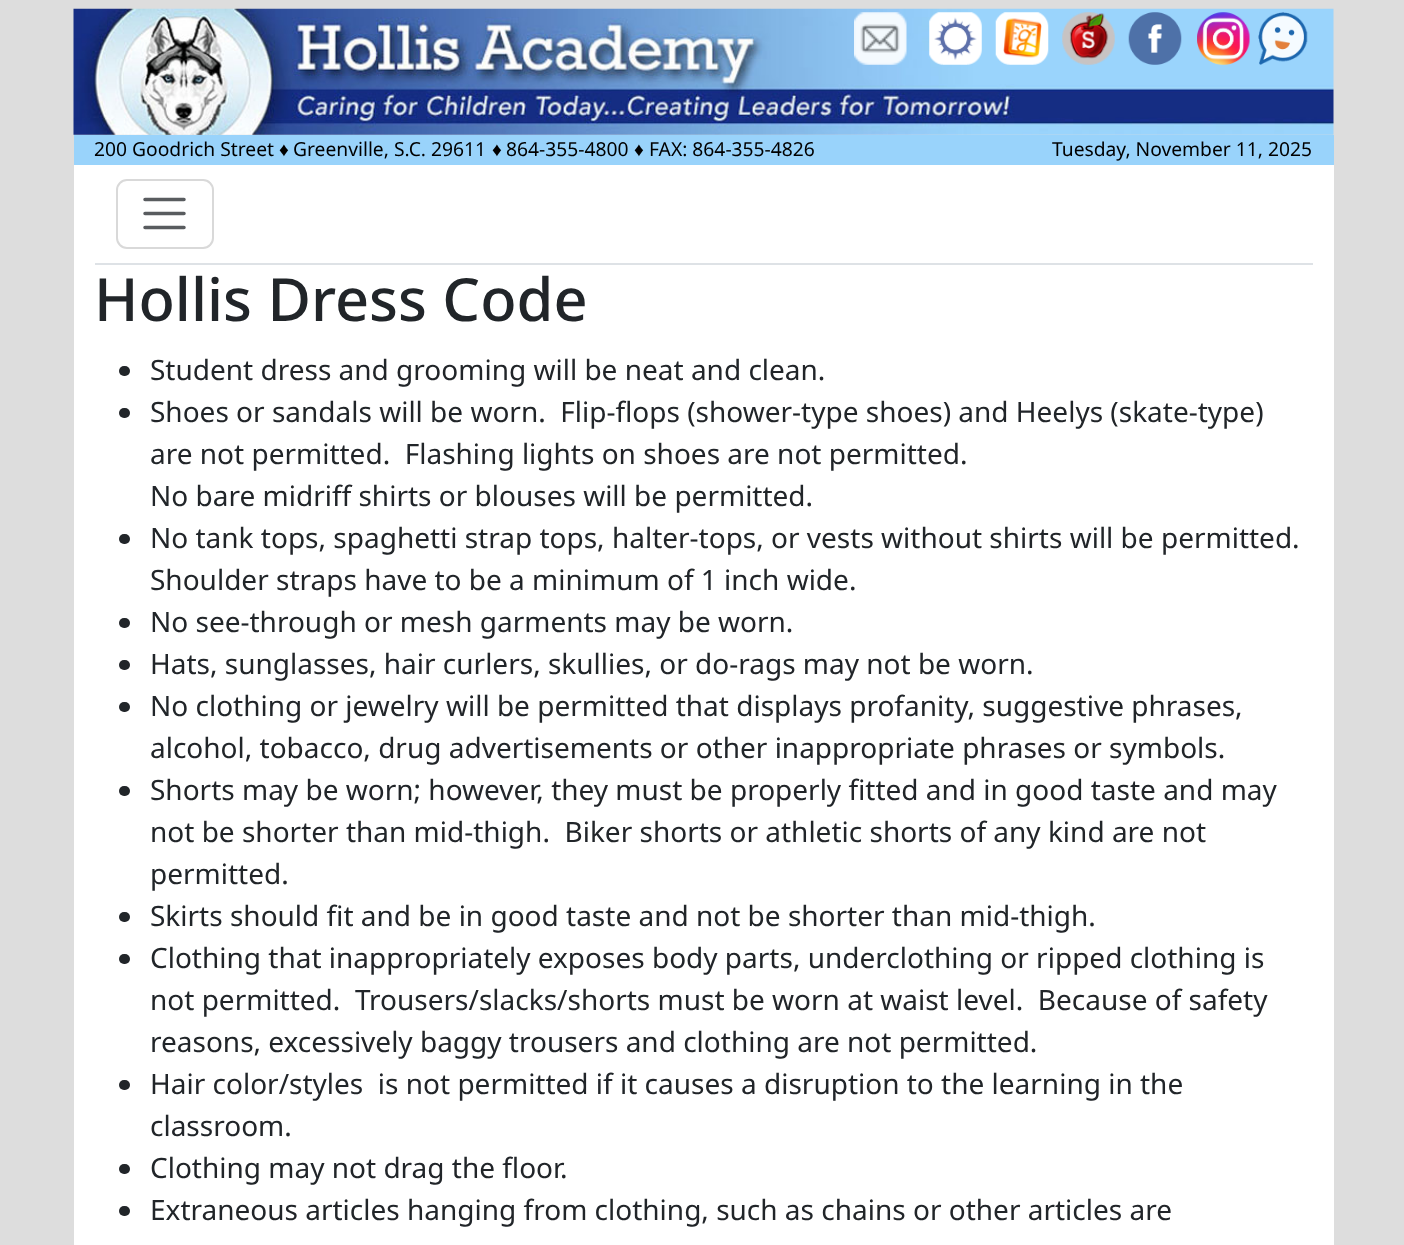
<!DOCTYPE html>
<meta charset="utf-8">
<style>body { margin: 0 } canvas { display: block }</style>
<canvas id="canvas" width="1404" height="1245"></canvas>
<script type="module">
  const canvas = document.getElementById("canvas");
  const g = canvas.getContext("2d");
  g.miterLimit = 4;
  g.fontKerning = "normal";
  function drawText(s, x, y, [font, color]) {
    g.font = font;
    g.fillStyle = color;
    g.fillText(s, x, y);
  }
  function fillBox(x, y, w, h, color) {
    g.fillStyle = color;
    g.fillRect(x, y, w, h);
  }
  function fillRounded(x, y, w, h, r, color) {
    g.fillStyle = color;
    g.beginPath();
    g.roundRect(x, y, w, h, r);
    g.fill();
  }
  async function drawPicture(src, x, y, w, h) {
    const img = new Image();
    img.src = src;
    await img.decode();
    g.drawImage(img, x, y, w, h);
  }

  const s1 = ["19.25px Noto Sans", "#000000"];
  const s2 = ["19.25px Liberation Sans", "#000000"];
  const s3 = ["500 59.5px Noto Sans", "#212529"];
  const s4 = ["28px Noto Sans", "#212529"];

  fillBox(0, 0, 1404, 1245, "#DDDDDD");
  await drawPicture("pic1.png", 73, 8, 1261, 127);
  await drawPicture("pic2.png", 854, 12, 53, 53);
  await drawPicture("pic3.png", 929, 12, 53, 53);
  await drawPicture("pic4.png", 995, 12, 54, 53);
  await drawPicture("pic5.png", 1062, 12, 53, 53);
  await drawPicture("pic6.png", 1128, 12, 54, 53);
  await drawPicture("pic7.png", 1197, 12, 53, 53);
  await drawPicture("pic8.png", 1258, 12, 50, 53);
  fillBox(74, 165, 1260, 1080, "#FFFFFF");
  fillBox(74, 135, 1260, 30, "#99D3FB");
  drawText("200 Goodrich Street", 94, 156, s1);
  drawText("♦", 279, 156, s2);
  drawText("Greenville, S.C. 29611", 293, 156, s1);
  drawText("♦", 492, 156, s2);
  drawText("864-355-4800", 506, 156, s1);
  drawText("♦", 634, 156, s2);
  drawText("FAX: 864-355-4826", 649, 156, s1);
  drawText("Tuesday, November 11, 2025", 1052, 156, s1);
  fillBox(95, 263, 1218, 2, "#DEE2E6");
  g.beginPath();
  g.roundRect(117, 180, 96, 68, 10);
  g.strokeStyle = "#D9D9D9";
  g.lineWidth = 2;
  g.stroke();
  g.beginPath();
  g.moveTo(145, 199.5);
  g.lineTo(184, 199.5);
  g.moveTo(145, 213.5);
  g.lineTo(184, 213.5);
  g.moveTo(145, 227.5);
  g.lineTo(184, 227.5);
  g.strokeStyle = "#595C5F";
  g.lineWidth = 3.5;
  g.lineCap = "round";
  g.stroke();
  drawText("Hollis Dress Code", 94, 321, s3);
  fillRounded(119, 366, 11, 10, 5, "#212529");
  drawText("Student dress and grooming will be neat and clean.", 150, 380, s4);
  fillRounded(119, 408, 11, 10, 5, "#212529");
  drawText("Shoes or sandals will be worn.  Flip-flops (shower-type shoes) and Heelys (skate-type)", 150, 422, s4);
  drawText("are not permitted.  Flashing lights on shoes are not permitted.", 150, 464, s4);
  drawText("No bare midriff shirts or blouses will be permitted.", 150, 506, s4);
  fillRounded(119, 534, 11, 10, 5, "#212529");
  drawText("No tank tops, spaghetti strap tops, halter-tops, or vests without shirts will be permitted.", 150, 548, s4);
  drawText("Shoulder straps have to be a minimum of 1 inch wide.", 150, 590, s4);
  fillRounded(119, 618, 11, 10, 5, "#212529");
  drawText("No see-through or mesh garments may be worn.", 150, 632, s4);
  fillRounded(119, 660, 11, 10, 5, "#212529");
  drawText("Hats, sunglasses, hair curlers, skullies, or do-rags may not be worn.", 150, 674, s4);
  fillRounded(119, 702, 11, 10, 5, "#212529");
  drawText("No clothing or jewelry will be permitted that displays profanity, suggestive phrases,", 150, 716, s4);
  drawText("alcohol, tobacco, drug advertisements or other inappropriate phrases or symbols.", 150, 758, s4);
  fillRounded(119, 786, 11, 10, 5, "#212529");
  drawText("Shorts may be worn; however, they must be properly fitted and in good taste and may", 150, 800, s4);
  drawText("not be shorter than mid-thigh.  Biker shorts or athletic shorts of any kind are not", 150, 842, s4);
  drawText("permitted.", 150, 884, s4);
  fillRounded(119, 912, 11, 10, 5, "#212529");
  drawText("Skirts should fit and be in good taste and not be shorter than mid-thigh.", 150, 926, s4);
  fillRounded(119, 954, 11, 10, 5, "#212529");
  drawText("Clothing that inappropriately exposes body parts, underclothing or ripped clothing is", 150, 968, s4);
  drawText("not permitted.  Trousers/slacks/shorts must be worn at waist level.  Because of safety", 150, 1010, s4);
  drawText("reasons, excessively baggy trousers and clothing are not permitted.", 150, 1052, s4);
  fillRounded(119, 1080, 11, 10, 5, "#212529");
  drawText("Hair color/styles  is not permitted if it causes a disruption to the learning in the", 150, 1094, s4);
  drawText("classroom.", 150, 1136, s4);
  fillRounded(119, 1164, 11, 10, 5, "#212529");
  drawText("Clothing may not drag the floor.", 150, 1178, s4);
  fillRounded(119, 1206, 11, 10, 5, "#212529");
  drawText("Extraneous articles hanging from clothing, such as chains or other articles are", 150, 1220, s4);
</script>
